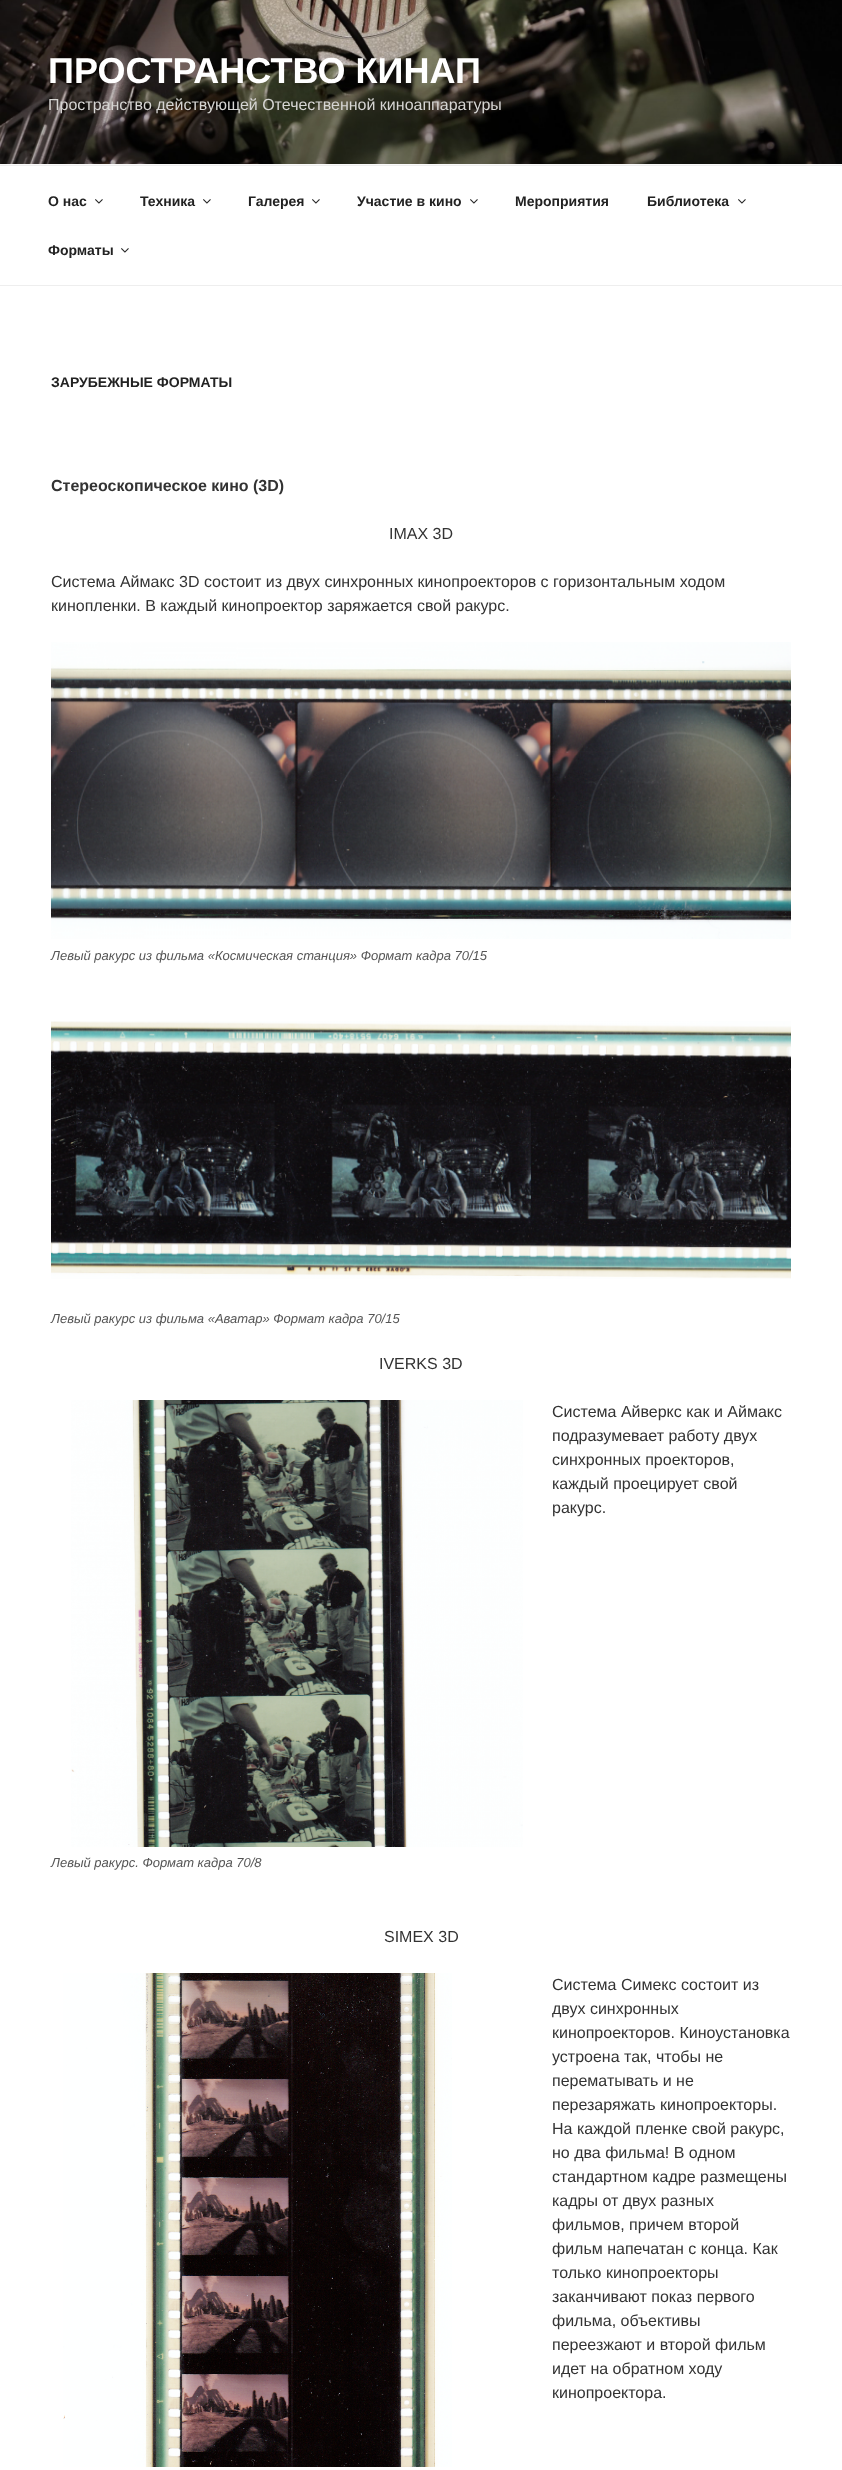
<!DOCTYPE html>
<meta charset="utf-8">
<style>body { margin: 0 } canvas { display: block }</style>
<canvas id="canvas" width="842" height="2470"></canvas>
<script type="module">
  const canvas = document.getElementById("canvas");
  const g = canvas.getContext("2d");
  g.miterLimit = 4;
  g.fontKerning = "normal";
  function drawText(s, x, y, [font, color]) {
    g.font = font;
    g.fillStyle = color;
    g.fillText(s, x, y);
  }
  function fillBox(x, y, w, h, color) {
    g.fillStyle = color;
    g.fillRect(x, y, w, h);
  }
  async function drawPicture(src, x, y, w, h) {
    const img = new Image();
    img.src = src;
    await img.decode();
    g.drawImage(img, x, y, w, h);
  }

  const s1 = ["bold 36px Liberation Sans", "#FFFFFF"];
  const s2 = ["16px Liberation Sans", "#D6D5D3"];
  const s3 = ["bold 14px Liberation Sans", "#222222"];
  const s4 = ["bold 16px Liberation Sans", "#333333"];
  const s5 = ["16px Liberation Sans", "#333333"];
  const s6 = ["italic 13px Liberation Sans", "#555555"];

  fillBox(0, 0, 842, 2470, "#FFFFFF");
  fillBox(0, 164, 842, 1, "#FAFAFA");
  await drawPicture("pic1.png", 0, 0, 842, 164);
  drawText("ПРОСТРАНСТВО КИНАП", 48, 83, s1);
  drawText("Пространство действующей Отечественной киноаппаратуры", 48, 110, s2);
  fillBox(0, 165, 842, 1, "#EEEEEE");
  fillBox(0, 285, 842, 1, "#EEEEEE");
  drawText("О нас", 48, 206, s3);
  await drawPicture("pic2.png", 95, 199, 8, 5);
  drawText("Техника", 140, 206, s3);
  await drawPicture("pic2.png", 203, 199, 8, 5);
  drawText("Галерея", 248, 206, s3);
  await drawPicture("pic2.png", 312, 199, 8, 5);
  drawText("Участие в кино", 357, 206, s3);
  await drawPicture("pic2.png", 470, 199, 8, 5);
  drawText("Мероприятия", 515, 206, s3);
  drawText("Библиотека", 647, 206, s3);
  await drawPicture("pic2.png", 738, 199, 8, 5);
  drawText("Форматы", 48, 255, s3);
  await drawPicture("pic2.png", 121, 248, 8, 5);
  drawText("ЗАРУБЕЖНЫЕ ФОРМАТЫ", 51, 387, s3);
  drawText("Стереоскопическое кино (3D)", 51, 491, s4);
  drawText("IMAX 3D", 389, 539, s5);
  drawText("Система Аймакс 3D состоит из двух синхронных кинопроекторов с горизонтальным ходом", 51, 587, s5);
  drawText("кинопленки. В каждый кинопроектор заряжается свой ракурс.", 51, 611, s5);
  await drawPicture("pic3.png", 51, 642, 740, 297);
  drawText("Левый ракурс из фильма «Космическая станция» Формат кадра 70/15", 51, 960, s6);
  await drawPicture("pic4.png", 51, 1021, 740, 258);
  drawText("Левый ракурс из фильма «Аватар» Формат кадра 70/15", 51, 1323, s6);
  drawText("IVERKS 3D", 379, 1369, s5);
  drawText("Система Айверкс как и Аймакс", 552, 1417, s5);
  drawText("подразумевает работу двух", 552, 1441, s5);
  drawText("синхронных проекторов,", 552, 1465, s5);
  drawText("каждый проецирует свой", 552, 1489, s5);
  drawText("ракурс.", 552, 1513, s5);
  await drawPicture("pic5.png", 71, 1400, 452, 447);
  drawText("Левый ракурс. Формат кадра 70/8", 51, 1867, s6);
  drawText("SIMEX 3D", 384, 1942, s5);
  await drawPicture("pic6.png", 63, 1973, 389, 494);
  drawText("Система Симекс состоит из", 552, 1990, s5);
  drawText("двух синхронных", 552, 2014, s5);
  drawText("кинопроекторов. Киноустановка", 552, 2038, s5);
  drawText("устроена так, чтобы не", 552, 2062, s5);
  drawText("перематывать и не", 552, 2086, s5);
  drawText("перезаряжать кинопроекторы.", 552, 2110, s5);
  drawText("На каждой пленке свой ракурс,", 552, 2134, s5);
  drawText("но два фильма! В одном", 552, 2158, s5);
  drawText("стандартном кадре размещены", 552, 2182, s5);
  drawText("кадры от двух разных", 552, 2206, s5);
  drawText("фильмов, причем второй", 552, 2230, s5);
  drawText("фильм напечатан с конца. Как", 552, 2254, s5);
  drawText("только кинопроекторы", 552, 2278, s5);
  drawText("заканчивают показ первого", 552, 2302, s5);
  drawText("фильма, объективы", 552, 2326, s5);
  drawText("переезжают и второй фильм", 552, 2350, s5);
  drawText("идет на обратном ходу", 552, 2374, s5);
  drawText("кинопроектора.", 552, 2398, s5);
</script>
